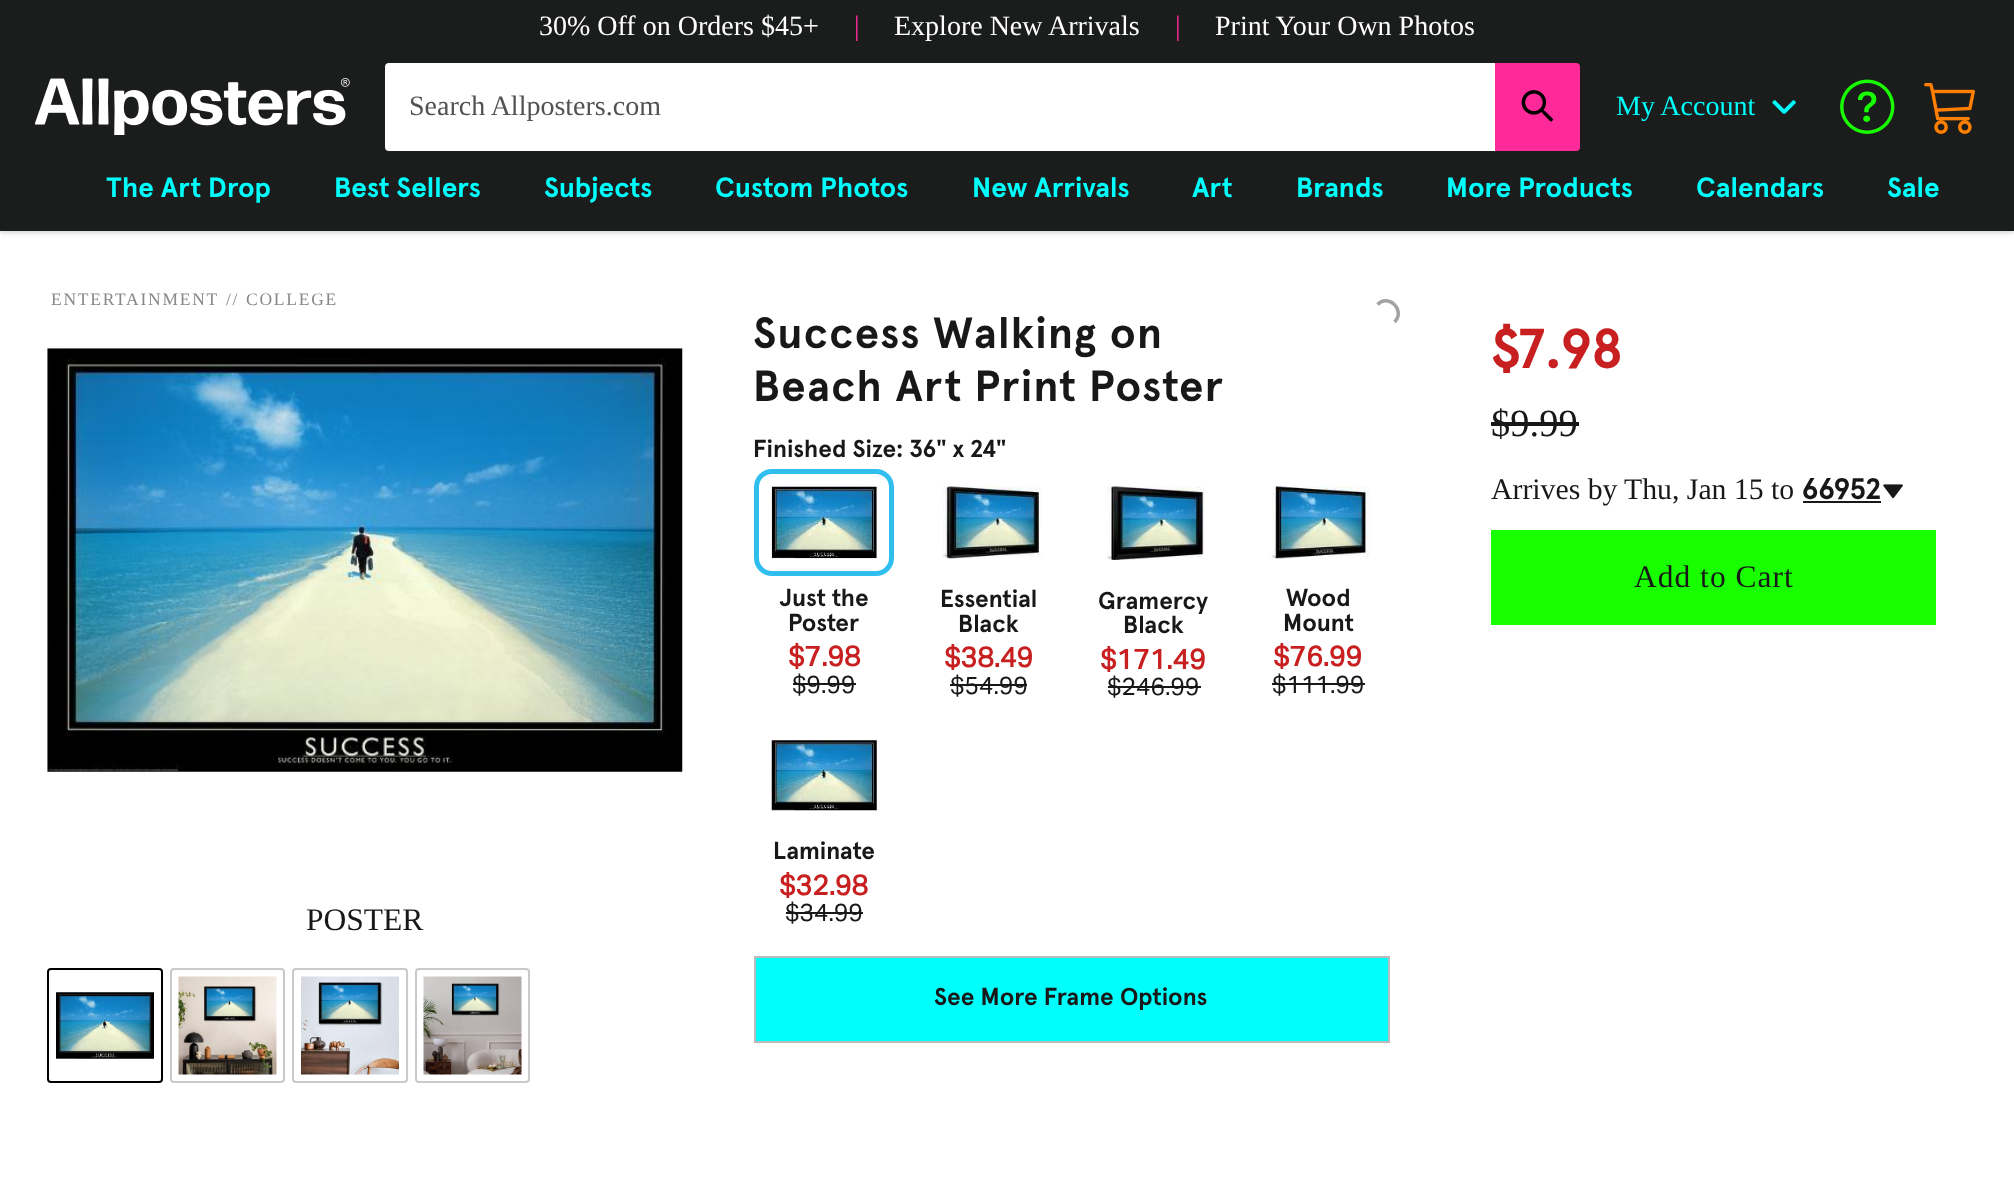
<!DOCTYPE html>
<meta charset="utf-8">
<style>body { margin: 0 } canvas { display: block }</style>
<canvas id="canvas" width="2014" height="1198"></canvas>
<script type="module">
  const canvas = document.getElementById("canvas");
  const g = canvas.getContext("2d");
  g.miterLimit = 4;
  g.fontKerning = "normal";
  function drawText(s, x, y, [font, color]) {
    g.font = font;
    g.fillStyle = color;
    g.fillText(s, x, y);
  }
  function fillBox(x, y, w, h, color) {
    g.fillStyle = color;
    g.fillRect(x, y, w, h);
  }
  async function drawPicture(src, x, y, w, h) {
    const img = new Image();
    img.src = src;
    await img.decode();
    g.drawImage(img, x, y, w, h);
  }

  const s1 = ["28px Liberation Serif", "#FFFFFF"];
  const s2 = ["28px Liberation Serif", "#FF2A99"];
  const s3 = ["28px Liberation Serif", "#525252"];
  const s4 = ["28px Liberation Serif", "#00FFFC"];
  const s5 = ["bold 28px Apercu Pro", "#00FFFC"];
  const s6 = ["17.5px Liberation Serif", "#888888"];
  const s7 = ["31.5px Liberation Serif", "#181818"];
  const s8 = ["bold 43.75px Apercu Pro", "#181818"];
  const s9 = ["bold 24.5px Apercu Pro", "#181818"];
  const s10 = ["bold 28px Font", "#C82020"];
  const s11 = ["24.5px Font", "#181818"];
  const s12 = ["bold 56px Apercu Pro", "#C82020"];
  const s13 = ["38.5px Liberation Serif", "#181818"];
  const s14 = ["29.75px Liberation Serif", "#181818"];
  const s15 = ["bold 29.75px Apercu Pro", "#181818"];

  fillBox(0, 0, 2014, 1198, "#FFFFFF");
  g.fillStyle = "rgba(0, 0, 0, 0.06)";
  g.filter = "blur(2px)";
  g.beginPath();
  g.rect(0, 54, 2014, 179);
  g.fill();
  g.filter = "none";
  g.fillStyle = "rgba(0, 0, 0, 0.1)";
  g.filter = "blur(2.5px)";
  g.beginPath();
  g.rect(0, 54, 2014, 179);
  g.fill();
  g.filter = "none";
  fillBox(0, 0, 2014, 231, "#1B1C1C");
  drawText("30% Off on Orders $45+", 539, 35, s1);
  drawText("|", 854, 35, s2);
  drawText("Explore New Arrivals", 894, 35, s1);
  drawText("|", 1175, 35, s2);
  drawText("Print Your Own Photos", 1215, 35, s1);
  await drawPicture("pic1.png", 35, 78, 315, 57);
  g.beginPath();
  g.roundRect(385, 63, 1110, 88, [4, 0, 0, 4]);
  g.fill();
  drawText("Search Allposters.com", 409, 115, s3);
  g.fillStyle = "#FF2A99";
  g.beginPath();
  g.roundRect(1495, 63, 85, 88, [0, 4, 4, 0]);
  g.fill();
  await drawPicture("pic2.png", 1521, 90, 33, 32);
  drawText("My Account", 1616, 115, s4);
  await drawPicture("pic3.png", 1772, 100, 24, 14);
  await drawPicture("pic4.png", 1840, 79, 55, 55);
  await drawPicture("pic5.png", 1924, 83, 51, 51);
  drawText("The Art Drop", 106, 197, s5);
  drawText("Best Sellers", 334, 197, s5);
  drawText("Subjects", 544, 197, s5);
  drawText("Custom Photos", 715, 197, s5);
  drawText("New Arrivals", 972, 197, s5);
  drawText("Art", 1192, 197, s5);
  drawText("Brands", 1296, 197, s5);
  drawText("More Products", 1446, 197, s5);
  drawText("Calendars", 1696, 197, s5);
  drawText("Sale", 1887, 197, s5);
  g.letterSpacing = "1.75px";
  drawText("ENTERTAINMENT", 51, 305, s6);
  drawText("//", 226, 305, s6);
  drawText("COLLEGE", 246, 305, s6);
  await drawPicture("pic6.png", 47, 348, 636, 424);
  g.letterSpacing = "0px";
  drawText("POSTER", 306, 930, s7);
  g.beginPath();
  g.roundRect(48, 969, 114, 113, 3);
  g.strokeStyle = "#000000";
  g.lineWidth = 2;
  g.stroke();
  await drawPicture("pic7.png", 56, 992, 98, 67);
  g.beginPath();
  g.roundRect(171, 969, 113, 113, 3);
  g.strokeStyle = "#C9C9C9";
  g.stroke();
  await drawPicture("pic8.png", 178, 976, 99, 99);
  g.beginPath();
  g.roundRect(293, 969, 114, 113, 3);
  g.stroke();
  await drawPicture("pic9.png", 301, 976, 98, 99);
  g.beginPath();
  g.roundRect(416, 969, 113, 113, 3);
  g.stroke();
  await drawPicture("pic10.png", 423, 976, 99, 99);
  g.beginPath();
  g.moveTo(1377.5, 304.5);
  g.bezierCurveTo(1388.5, 293, 1406, 310.5, 1394.5, 322);
  g.strokeStyle = "#A3A3A3";
  g.lineWidth = 3.5;
  g.stroke();
  g.letterSpacing = "1.3px";
  drawText("Success Walking on", 753, 348, s8);
  drawText("Beach Art Print Poster", 753, 401, s8);
  g.letterSpacing = "0px";
  drawText("Finished Size: 36\" x 24\"", 753, 457, s9);
  g.beginPath();
  g.roundRect(756.5, 471.5, 135, 102, 15.5);
  g.strokeStyle = "#30BEEF";
  g.lineWidth = 5;
  g.stroke();
  await drawPicture("pic11.png", 771, 486, 106, 73);
  drawText("Just the", 779, 606, s9);
  drawText("Poster", 788, 631, s9);
  drawText("$7.98", 788, 666, s10);
  drawText("$9.99", 792, 693, s11);
  fillBox(793, 683, 63, 2, "#181818");
  await drawPicture("pic12.png", 942, 486, 99, 73);
  drawText("Essential", 940, 607, s9);
  drawText("Black", 958, 632, s9);
  drawText("$38.49", 944, 667, s10);
  drawText("$54.99", 950, 694, s11);
  fillBox(950, 684, 77, 2, "#181818");
  await drawPicture("pic13.png", 1107, 486, 98, 74);
  drawText("Gramercy", 1098, 609, s9);
  drawText("Black", 1123, 633, s9);
  drawText("$171.49", 1100, 669, s10);
  drawText("$246.99", 1107, 695, s11);
  fillBox(1108, 686, 93, 2, "#181818");
  await drawPicture("pic14.png", 1271, 486, 99, 73);
  drawText("Wood", 1286, 606, s9);
  drawText("Mount", 1283, 631, s9);
  drawText("$76.99", 1273, 666, s10);
  drawText("$111.99", 1272, 693, s11);
  fillBox(1272, 683, 93, 2, "#181818");
  await drawPicture("pic15.png", 771, 740, 106, 71);
  drawText("Laminate", 773, 859, s9);
  drawText("$32.98", 779, 895, s10);
  drawText("$34.99", 785, 921, s11);
  fillBox(786, 912, 77, 2, "#181818");
  g.fillStyle = "#00FFFC";
  g.beginPath();
  g.rect(755, 957, 634, 85);
  g.fill();
  g.strokeStyle = "#BBBBBB";
  g.lineWidth = 2;
  g.stroke();
  drawText("See More Frame Options", 934, 1005, s9);
  drawText("$7.98", 1491, 368, s12);
  drawText("$9.99", 1491, 436, s13);
  fillBox(1491, 422, 88, 4, "#181818");
  drawText("Arrives by", 1491, 499, s14);
  drawText("Thu, Jan 15 to", 1624, 499, s14);
  drawText("66952", 1802, 499, s15);
  fillBox(1803, 501, 78, 2, "#181818");
  await drawPicture("pic16.png", 1883, 484, 20, 15);
  fillBox(1491, 530, 445, 95, "#18FF00");
  g.letterSpacing = "1px";
  drawText("Add to Cart", 1634, 587, s7);
</script>
